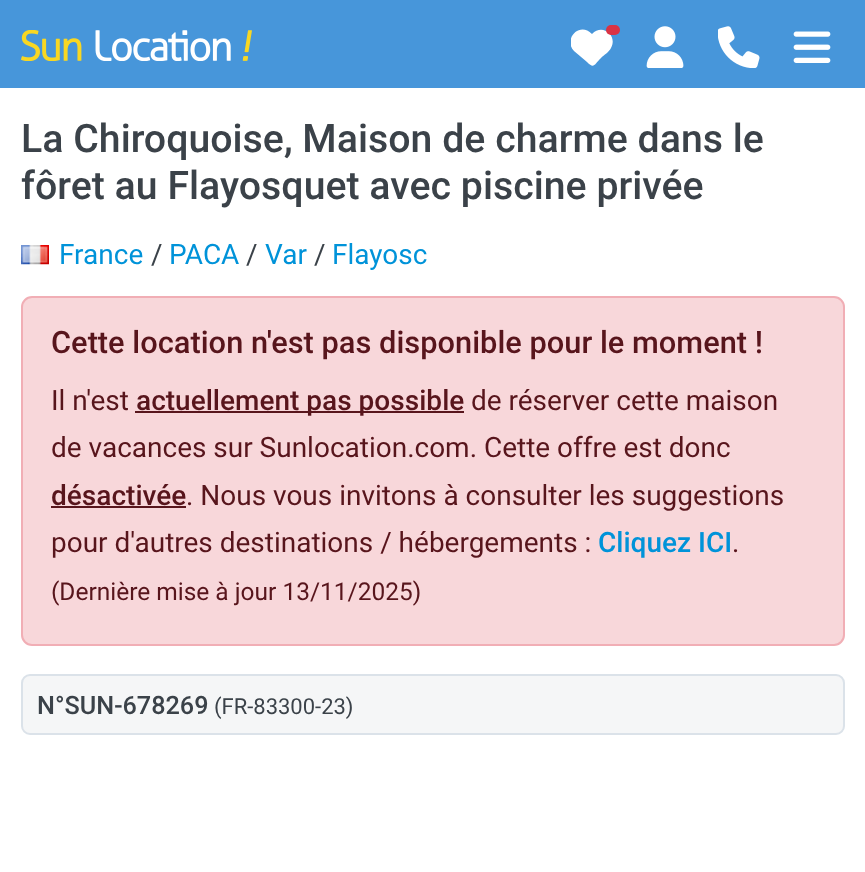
<!DOCTYPE html>
<meta charset="utf-8">
<style>body { margin: 0 } canvas { display: block }</style>
<canvas id="canvas" width="865" height="872"></canvas>
<script type="module">
  const canvas = document.getElementById("canvas");
  const g = canvas.getContext("2d");
  g.miterLimit = 4;
  g.fontKerning = "normal";
  function drawText(s, x, y, [font, color]) {
    g.font = font;
    g.fillStyle = color;
    g.fillText(s, x, y);
  }
  function fillBox(x, y, w, h, color) {
    g.fillStyle = color;
    g.fillRect(x, y, w, h);
  }
  function fillRounded(x, y, w, h, r, color) {
    g.fillStyle = color;
    g.beginPath();
    g.roundRect(x, y, w, h, r);
    g.fill();
  }
  async function drawPicture(src, x, y, w, h) {
    const img = new Image();
    img.src = src;
    await img.decode();
    g.drawImage(img, x, y, w, h);
  }

  const s1 = ["500 39.25px Roboto", "#3B4249"];
  const s2 = ["28px Roboto", "#0093D9"];
  const s3 = ["28px Roboto", "#3B4249"];
  const s4 = ["500 30.8px Roboto", "#58151C"];
  const s5 = ["28px Roboto", "#58151C"];
  const s6 = ["500 28px Roboto", "#58151C"];
  const s7 = ["500 28px Roboto", "#0093D9"];
  const s8 = ["24.5px Roboto", "#58151C"];
  const s9 = ["500 25.25px Roboto", "#3B4249"];
  const s10 = ["22px Roboto", "#3B4249"];

  fillBox(0, 0, 865, 872, "#FFFFFF");
  fillBox(0, 0, 865, 88, "#4796DA");
  await drawPicture("pic1.png", 21, 30, 231, 31);
  g.save();
  g.beginPath();
  g.rect(571, 26, 42, 42);
  g.clip();
  g.fillStyle = "#FFFFFF";
  g.beginPath();
  g.moveTo(574, 51);
  g.lineTo(587, 62);
  g.bezierCurveTo(594, 69, 594, 65, 601, 58);
  g.bezierCurveTo(604, 55, 609, 52, 611, 48);
  g.bezierCurveTo(618, 35, 602, 23, 592, 34);
  g.bezierCurveTo(579, 21, 563, 40, 574, 51);
  g.closePath();
  g.fill();
  g.restore();
  fillRounded(606, 25, 14, 10, 5, "#DA3344");
  await drawPicture("pic2.png", 646, 26, 38, 42);
  await drawPicture("pic3.png", 718, 26, 42, 42);
  await drawPicture("pic4.png", 793, 31, 38, 32);
  drawText("La Chiroquoise, Maison de charme dans le", 21, 152, s1);
  drawText("fôret au Flayosquet avec piscine privée", 21, 199, s1);
  await drawPicture("pic5.png", 21, 245, 28, 20);
  drawText("France", 59, 264, s2);
  drawText("/", 151, 264, s3);
  drawText("PACA", 169, 264, s2);
  drawText("/", 246, 264, s3);
  drawText("Var", 265, 264, s2);
  drawText("/", 314, 264, s3);
  drawText("Flayosc", 332, 264, s2);
  g.fillStyle = "#F8D7DA";
  g.beginPath();
  g.roundRect(22, 297, 822, 348, 10);
  g.fill();
  g.strokeStyle = "#F1AEB5";
  g.lineWidth = 2;
  g.stroke();
  drawText("Cette location n'est pas disponible pour le moment !", 51, 353, s4);
  drawText("Il n'est", 51, 410, s5);
  fillBox(135, 411, 329, 2, "#58151C");
  drawText("actuellement pas possible", 136, 410, s6);
  drawText("de réserver cette maison", 471, 410, s5);
  drawText("de vacances sur Sunlocation.com. Cette offre est donc", 51, 457, s5);
  drawText("désactivée", 51, 505, s6);
  fillBox(51, 506, 135, 2, "#58151C");
  drawText(". Nous vous invitons à consulter les suggestions", 186, 505, s5);
  drawText("pour d'autres destinations / hébergements :", 51, 552, s5);
  drawText("Cliquez ICI", 598, 552, s7);
  drawText(".", 732, 552, s5);
  drawText("(Dernière mise à jour 13/11/2025)", 51, 600, s8);
  g.fillStyle = "#F5F6F7";
  g.beginPath();
  g.roundRect(22, 675, 822, 59, 8);
  g.fill();
  g.strokeStyle = "#DBE2E9";
  g.stroke();
  drawText("N°SUN-678269", 37, 714, s9);
  drawText("(FR-83300-23)", 214, 714, s10);
</script>
